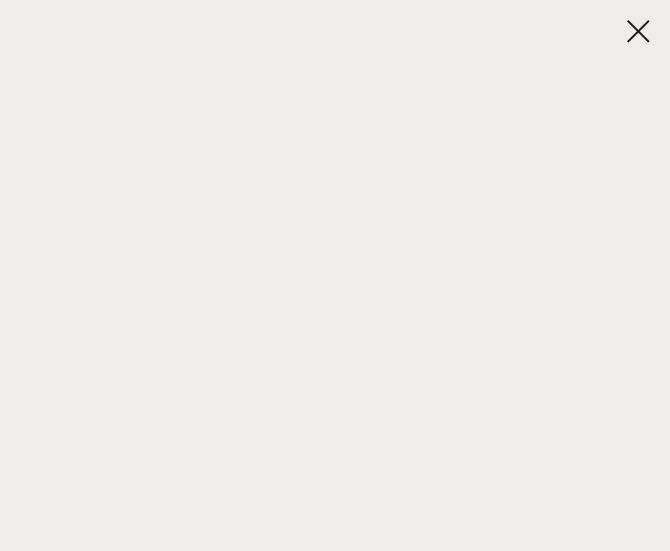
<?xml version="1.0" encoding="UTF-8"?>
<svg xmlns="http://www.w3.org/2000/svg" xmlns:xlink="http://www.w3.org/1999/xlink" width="670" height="551">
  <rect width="100%" height="100%" fill="#eeedea" />
  <image x="627" y="20" width="23" height="23" xlink:href="image1.png" />
</svg>
